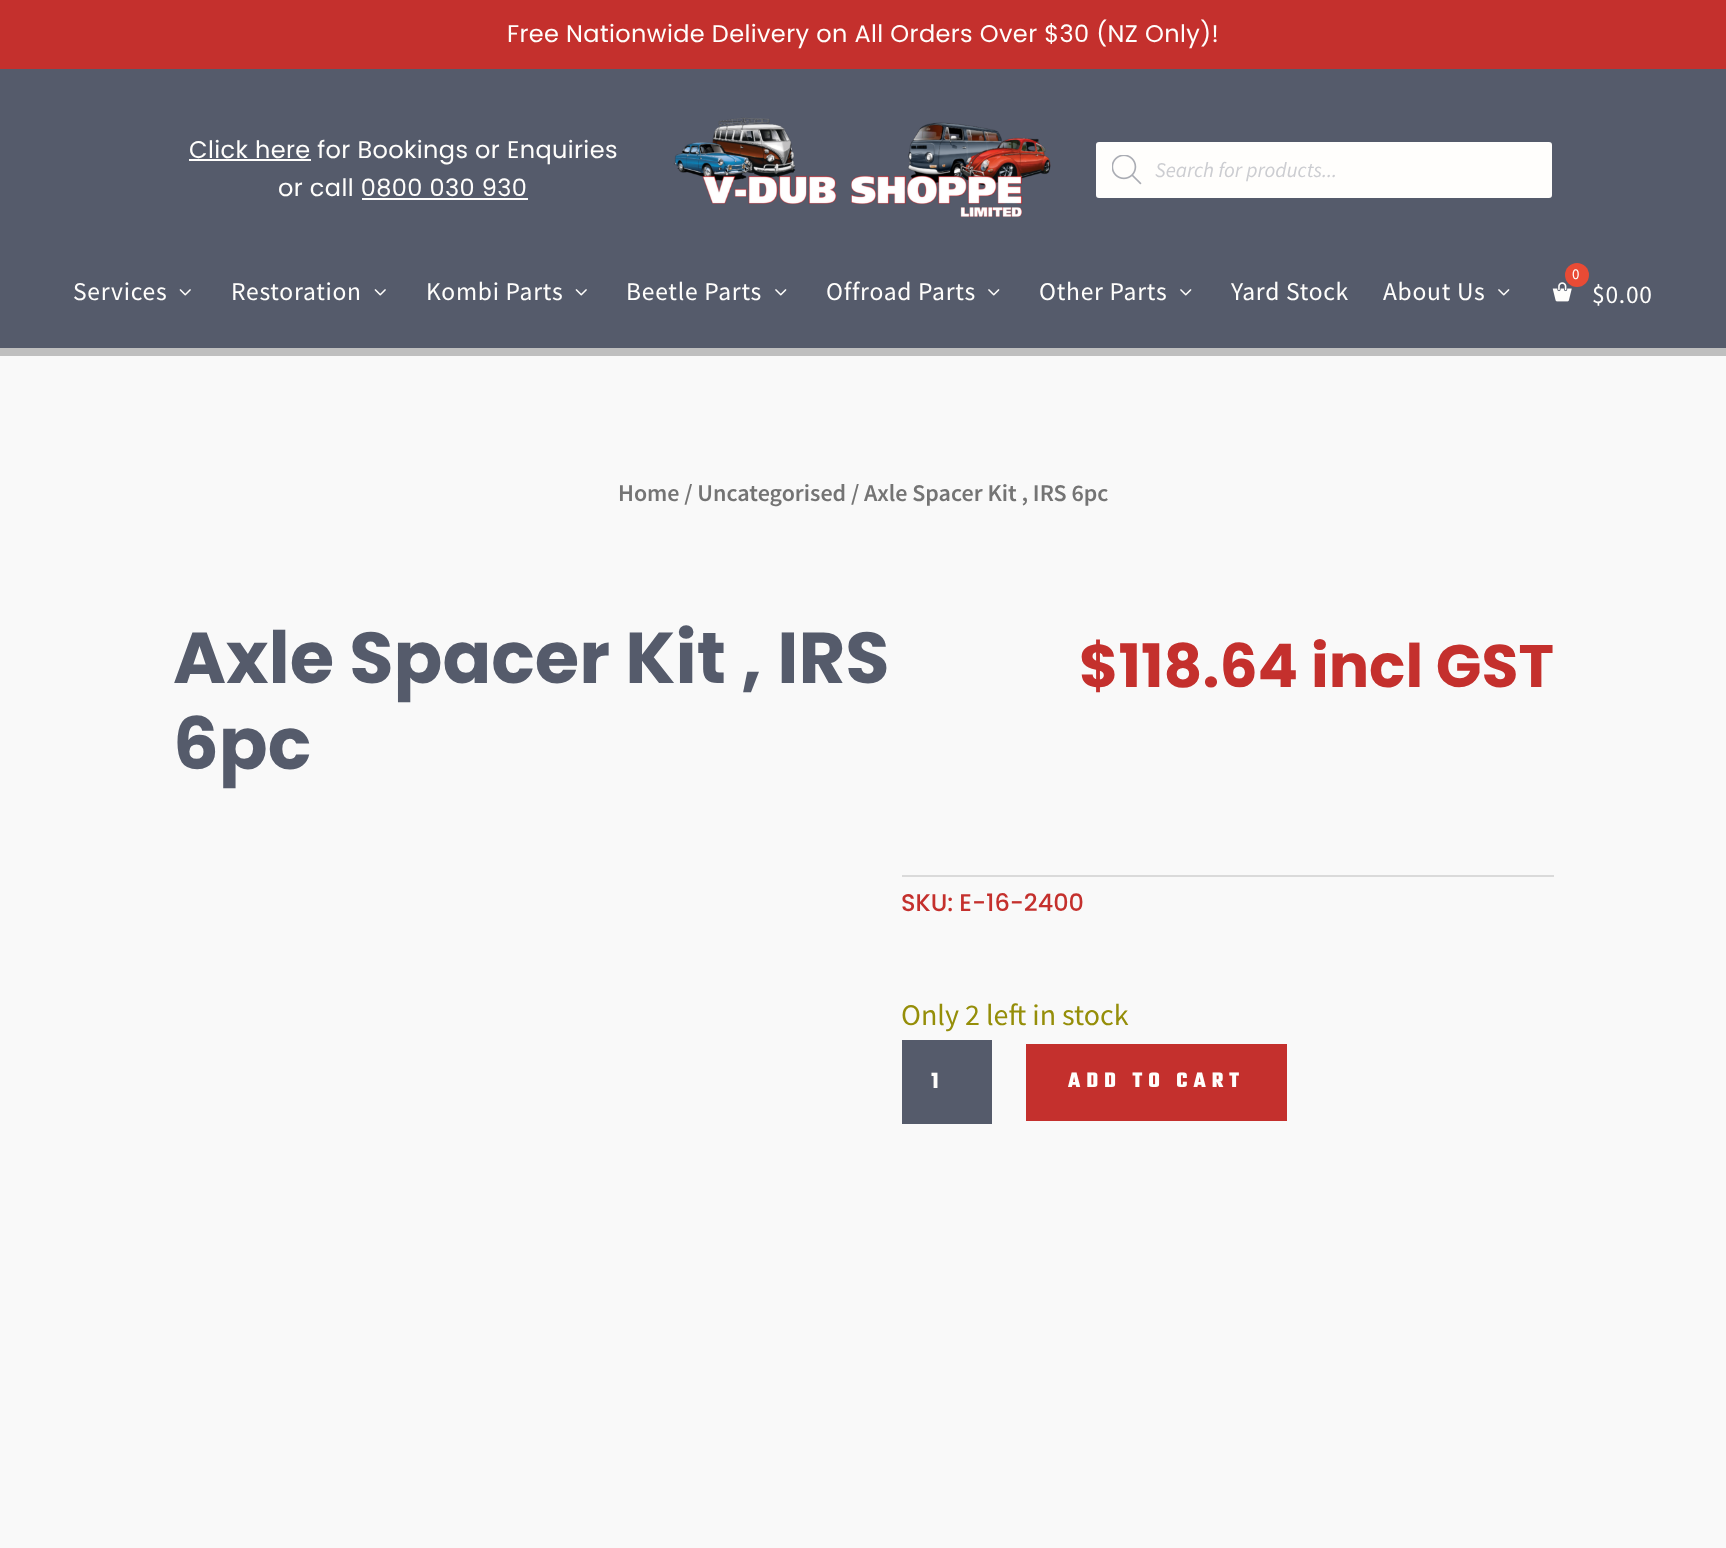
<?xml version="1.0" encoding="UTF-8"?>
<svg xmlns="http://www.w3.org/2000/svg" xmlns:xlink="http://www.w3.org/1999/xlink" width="1726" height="1548">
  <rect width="100%" height="100%" fill="#f9f9f9" />
  <rect width="1726" height="69" fill="#c4302d" />
  <rect y="69" width="1726" height="279" fill="#555b6b" />
  <rect x="189" y="159" width="122" height="2" fill="#fffefc" />
  <rect x="362" y="198" width="166" height="2" fill="#fffefc" />
  <image x="673" y="117" width="378" height="100" xlink:href="image1.png" />
  <rect x="1095" y="141" width="458" height="58" rx="4" fill="#fffefc" stroke="#555b6b" stroke-width="2" />
  <image x="1112" y="155" width="30" height="30" xlink:href="image2.png" />
  <rect y="348" width="1726" height="8" fill="#bfbfbf" />
  <image x="179" y="289" width="12" height="7" xlink:href="image3.png" />
  <image x="374" y="289" width="12" height="7" xlink:href="image3.png" />
  <image x="575" y="289" width="12" height="7" xlink:href="image3.png" />
  <image x="775" y="289" width="12" height="7" xlink:href="image4.png" />
  <image x="988" y="289" width="12" height="7" xlink:href="image4.png" />
  <image x="1180" y="289" width="12" height="7" xlink:href="image4.png" />
  <image x="1498" y="289" width="12" height="7" xlink:href="image4.png" />
  <image x="1552" y="282" width="20" height="20" xlink:href="image5.png" />
  <circle cx="1577" cy="275" r="12" fill="#e94b35" />
  <rect x="902" y="875" width="652" height="2" fill="#dadada" />
  <rect x="902" y="1040" width="90" height="84" fill="#555b6b" />
  <rect x="1026" y="1044" width="261" height="77" fill="#c4302d" />
  <text x="507" y="42" style="font-family: Poppins; font-size: 24px; letter-spacing: 0.38px; fill: #fffefc">Free Nationwide Delivery on All Orders Over $30 (NZ Only)!</text>
  <text x="189" y="158" style="font-family: Poppins; font-size: 24px; letter-spacing: 0.38px; fill: #fffefc">Click here for Bookings or Enquiries</text>
  <text x="278" y="196" style="font-family: Poppins; font-size: 24px; letter-spacing: 0.38px; fill: #fffefc">or call 0800 030 930</text>
  <text x="1155" y="177" style="font-family: Source Sans Pro; font-size: 21px; font-style: italic; fill: #cccdd1">Search for products...</text>
  <text x="73" y="300" style="font-family: Source Sans Pro; font-size: 25.5px; letter-spacing: 0.75px; fill: #fffefc">Services</text>
  <text x="231" y="300" style="font-family: Source Sans Pro; font-size: 25.5px; letter-spacing: 0.75px; fill: #fffefc">Restoration</text>
  <text x="426" y="300" style="font-family: Source Sans Pro; font-size: 25.5px; letter-spacing: 0.75px; fill: #fffefc">Kombi Parts</text>
  <text x="626" y="300" style="font-family: Source Sans Pro; font-size: 25.5px; letter-spacing: 0.75px; fill: #fffefc">Beetle Parts</text>
  <text x="826" y="300" style="font-family: Source Sans Pro; font-size: 25.5px; letter-spacing: 0.75px; fill: #fffefc">Offroad Parts</text>
  <text x="1039" y="300" style="font-family: Source Sans Pro; font-size: 25.5px; letter-spacing: 0.75px; fill: #fffefc">Other Parts</text>
  <text x="1231" y="300" style="font-family: Source Sans Pro; font-size: 25.5px; letter-spacing: 0.75px; fill: #fffefc">Yard Stock</text>
  <text x="1383" y="300" style="font-family: Source Sans Pro; font-size: 25.5px; letter-spacing: 0.75px; fill: #fffefc">About Us</text>
  <text x="1572" y="279" style="font-family: Source Sans Pro; font-size: 15px; letter-spacing: 0.75px; fill: #fffefc">0</text>
  <text x="1592" y="303" style="font-family: Source Sans Pro; font-size: 25.5px; letter-spacing: 0.75px; fill: #fffefc">$0.00</text>
  <text x="618" y="501" style="font-family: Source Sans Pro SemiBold; font-size: 24px; font-weight: 600; fill: #747474">Home / Uncategorised / Axle Spacer Kit , IRS 6pc</text>
  <text x="173" y="683" style="font-family: Poppins; font-size: 72px; font-weight: bold; fill: #555b6b">Axle Spacer Kit , IRS</text>
  <text x="173" y="769" style="font-family: Poppins; font-size: 72px; font-weight: bold; fill: #555b6b">6pc</text>
  <text x="1079" y="687" style="font-family: Poppins; font-size: 60px; font-weight: bold; fill: #c4302d">$118.64 incl GST</text>
  <text x="901" y="911" style="font-family: Poppins; font-size: 24px; font-weight: 500; fill: #c4302d">SKU: E-16-2400</text>
  <text x="901" y="1025" style="font-family: Source Sans Pro; font-size: 30px; fill: #958e09">Only 2 left in stock</text>
  <text x="931" y="1088" style="font-family: Poppins; font-size: 21px; font-weight: bold; fill: #fffefc">1</text>
  <text x="1068" y="1087" style="font-family: Teko; font-size: 22.5px; font-weight: bold; letter-spacing: 6px; fill: #fffefc">ADD TO CART</text>
</svg>
